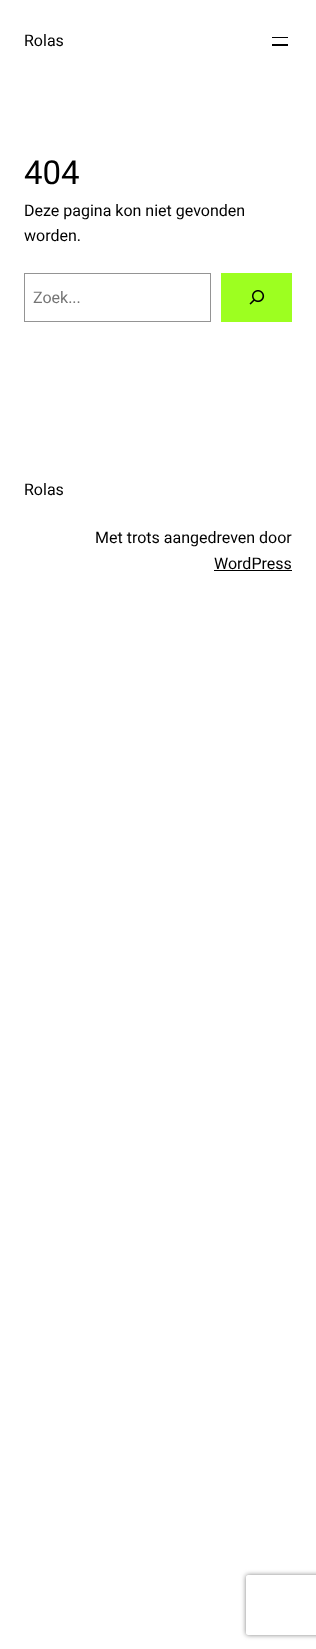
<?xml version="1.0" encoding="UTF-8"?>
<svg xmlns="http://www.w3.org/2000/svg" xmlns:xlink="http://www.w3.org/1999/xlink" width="316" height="1649">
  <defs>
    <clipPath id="clip1"><path d="M 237 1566 h 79 v 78 h -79 z m 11 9 h 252 c 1 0 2 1 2 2 v 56 c 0 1 -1 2 -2 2 h -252 c -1 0 -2 -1 -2 -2 v -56 c 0 -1 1 -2 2 -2 z" clip-rule="evenodd" /></clipPath>
  </defs>
  <rect width="100%" height="100%" fill="#ffffff" />
  <rect x="272" y="37" width="16" height="1" fill="#000000" />
  <rect x="272" y="44" width="16" height="2" fill="#000000" />
  <rect x="24.5" y="273.5" width="186" height="48" fill="none" stroke="#949494" />
  <rect x="221" y="273" width="71" height="49" fill="#9dff20" />
  <image x="249" y="290" width="16" height="15" xlink:href="image1.png" />
  <rect x="214" y="570" width="78" height="1" fill="#000000" />
  <g clip-path="url(#clip1)">
    <rect x="246" y="1575" width="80" height="60" rx="2" fill="#808080" filter="blur(2.5px)" />
  </g>
  <text x="24" y="46" style="font-family: Roboto; font-size: 16px; fill: #000000">Rolas</text>
  <text x="24" y="184" style="font-family: Roboto; font-size: 33px; fill: #000000">404</text>
  <text x="24" y="216" style="font-family: Roboto; font-size: 16px; fill: #000000">Deze pagina kon niet gevonden</text>
  <text x="24" y="241" style="font-family: Roboto; font-size: 16px; fill: #000000">worden.</text>
  <text x="33" y="303" style="font-family: Roboto; font-size: 16px; fill: #757575">Zoek...</text>
  <text x="24" y="495" style="font-family: Roboto; font-size: 16px; fill: #000000">Rolas</text>
  <text x="95" y="543" style="font-family: Roboto; font-size: 16px; fill: #000000">Met trots aangedreven door</text>
  <text x="214" y="569" style="font-family: Roboto; font-size: 16px; fill: #000000">WordPress</text>
</svg>
